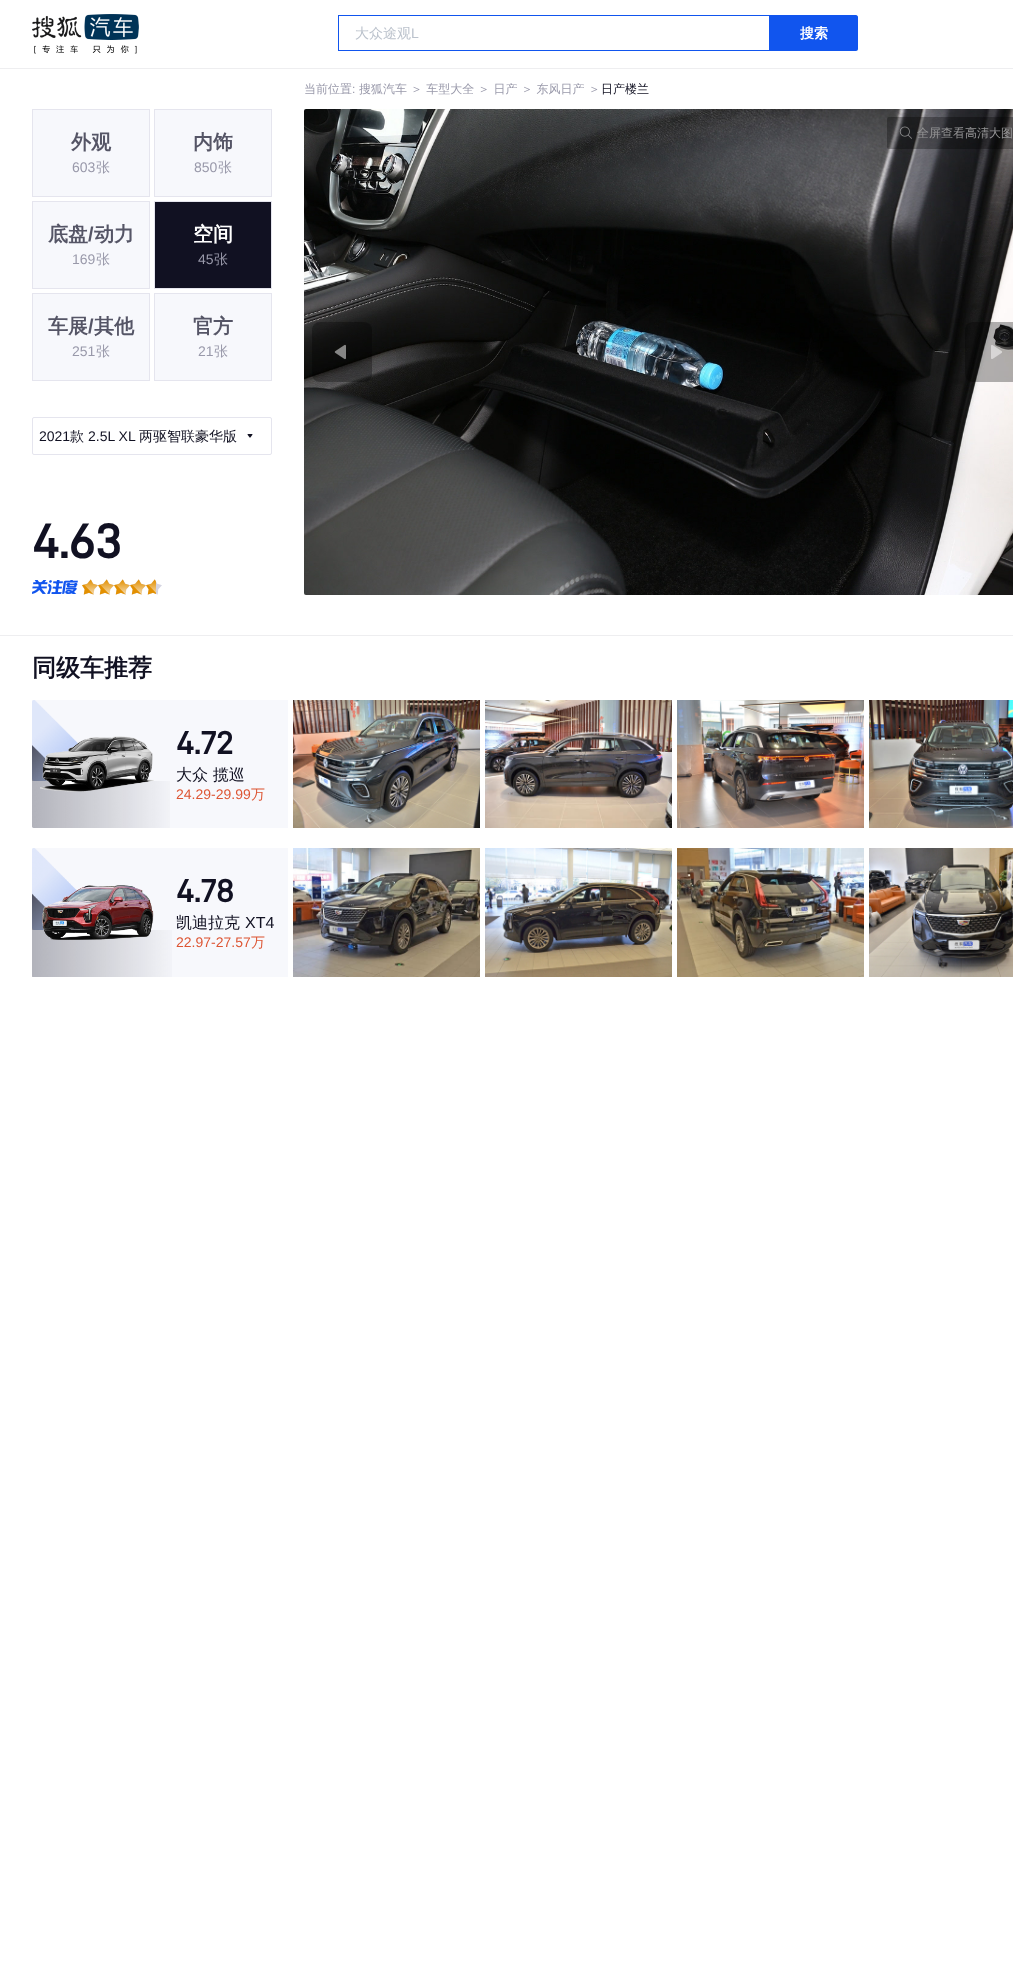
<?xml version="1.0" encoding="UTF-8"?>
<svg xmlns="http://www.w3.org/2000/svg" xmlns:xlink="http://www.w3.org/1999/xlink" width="1013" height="1983">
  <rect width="100%" height="100%" fill="#ffffff" />
  <rect y="68" width="1013" height="1" fill="#eeeef0" />
  <image x="32" y="14" width="107" height="40" xlink:href="image1.png" />
  <rect x="338.5" y="15.5" width="431" height="35" fill="none" stroke="#1155ee" />
  <path d="M 770 15 h 86 c 1 0 2 1 2 2 v 32 c 0 1 -1 2 -2 2 h -86 z" fill="#1155ee" />
  <rect x="32.5" y="109.5" width="117" height="87" fill="#f7f8fc" stroke="#e5e5ee" />
  <rect x="154.5" y="109.5" width="117" height="87" fill="#f7f8fc" stroke="#e5e5ee" />
  <rect x="32.5" y="201.5" width="117" height="87" fill="#f7f8fc" stroke="#e5e5ee" />
  <rect x="154.5" y="201.5" width="117" height="87" fill="#111122" stroke="#e5e5ee" />
  <rect x="32.5" y="293.5" width="117" height="87" fill="#f7f8fc" stroke="#e5e5ee" />
  <rect x="154.5" y="293.5" width="117" height="87" fill="#f7f8fc" stroke="#e5e5ee" />
  <rect x="32.5" y="417.5" width="239" height="37" rx="1.5" fill="none" stroke="#e5e5ee" />
  <image x="247" y="434" width="6" height="4" xlink:href="image2.png" />
  <image x="32" y="580" width="46" height="14" xlink:href="image3.png" />
  <image x="82" y="579" width="16" height="16" xlink:href="image4.png" />
  <image x="82" y="579" width="16" height="16" xlink:href="image5.png" />
  <image x="98" y="579" width="16" height="16" xlink:href="image4.png" />
  <image x="98" y="579" width="16" height="16" xlink:href="image5.png" />
  <image x="114" y="579" width="16" height="16" xlink:href="image4.png" />
  <image x="114" y="579" width="16" height="16" xlink:href="image5.png" />
  <image x="130" y="579" width="16" height="16" xlink:href="image4.png" />
  <image x="130" y="579" width="16" height="16" xlink:href="image5.png" />
  <image x="146" y="579" width="16" height="16" xlink:href="image4.png" />
  <image x="146" y="579" width="10" height="16" xlink:href="image6.png" />
  <image x="304" y="109" width="709" height="486" xlink:href="image7.png" />
  <rect x="887" y="117" width="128" height="32" rx="2" fill="#000000" fill-opacity="0.3" />
  <image x="899" y="126" width="13" height="13" xlink:href="image8.png" />
  <rect x="312" y="322" width="60" height="60" rx="8" fill="#000000" fill-opacity="0.3" />
  <image x="334" y="344" width="12" height="16" xlink:href="image9.png" />
  <rect x="965" y="322" width="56" height="60" rx="8" fill="#000000" fill-opacity="0.3" />
  <image x="991" y="345" width="11" height="14" xlink:href="image10.png" />
  <rect y="635" width="1013" height="1" fill="#eeeef0" />
  <rect x="32" y="700" width="256" height="128" fill="#f7f8fc" />
  <image x="32" y="700" width="138" height="128" xlink:href="image11.png" />
  <image x="40" y="736" width="114" height="56" xlink:href="image12.png" />
  <image x="293" y="700" width="187" height="128" xlink:href="image13.png" />
  <image x="485" y="700" width="187" height="128" xlink:href="image14.png" />
  <image x="677" y="700" width="187" height="128" xlink:href="image15.png" />
  <image x="869" y="700" width="144" height="128" xlink:href="image16.png" />
  <rect x="32" y="848" width="256" height="129" fill="#f7f8fc" />
  <image x="32" y="848" width="140" height="129" xlink:href="image17.png" />
  <image x="42" y="885" width="112" height="55" xlink:href="image18.png" />
  <image x="293" y="848" width="187" height="129" xlink:href="image19.png" />
  <image x="485" y="848" width="187" height="129" xlink:href="image20.png" />
  <image x="677" y="848" width="187" height="129" xlink:href="image21.png" />
  <image x="869" y="848" width="144" height="129" xlink:href="image22.png" />
  <text x="355" y="38" style="font-family: WenQuanYi Zen Hei; font-size: 14px; font-weight: 500; fill: #bbc2cc">大众途观</text>
  <text x="411" y="38" style="font-family: Liberation Sans; font-size: 14px; fill: #bbc2cc">L</text>
  <text x="800" y="38" style="font-family: WenQuanYi Zen Hei; font-size: 14px; font-weight: bold; fill: #ffffff">搜索</text>
  <text x="304" y="93" style="font-family: WenQuanYi Zen Hei; font-size: 12px; font-weight: 500; fill: #9999aa">当前位置</text>
  <text x="352" y="93" style="font-family: Liberation Sans; font-size: 12px; fill: #9999aa">:</text>
  <text x="359" y="93" style="font-family: WenQuanYi Zen Hei; font-size: 12px; font-weight: 500; fill: #9999aa">搜狐汽车 ＞ 车型大全 ＞ 日产 ＞ 东风日产 ＞</text>
  <text x="601" y="93" style="font-family: WenQuanYi Zen Hei; font-size: 12px; font-weight: 500; fill: #111122">日产楼兰</text>
  <text x="71" y="149" style="font-family: WenQuanYi Zen Hei; font-size: 20px; font-weight: bold; fill: #555566">外观</text>
  <text x="72" y="172" style="font-family: Liberation Sans; font-size: 14px; fill: #9999aa">603</text>
  <text x="96" y="172" style="font-family: WenQuanYi Zen Hei; font-size: 14px; font-weight: 500; fill: #9999aa">张</text>
  <text x="193" y="149" style="font-family: WenQuanYi Zen Hei; font-size: 20px; font-weight: bold; fill: #555566">内饰</text>
  <text x="194" y="172" style="font-family: Liberation Sans; font-size: 14px; fill: #9999aa">850</text>
  <text x="218" y="172" style="font-family: WenQuanYi Zen Hei; font-size: 14px; font-weight: 500; fill: #9999aa">张</text>
  <text x="48" y="241" style="font-family: WenQuanYi Zen Hei; font-size: 20px; font-weight: bold; fill: #555566">底盘</text>
  <text x="88" y="241" style="font-family: Liberation Sans; font-size: 20px; font-weight: bold; fill: #555566">/</text>
  <text x="94" y="241" style="font-family: WenQuanYi Zen Hei; font-size: 20px; font-weight: bold; fill: #555566">动力</text>
  <text x="72" y="264" style="font-family: Liberation Sans; font-size: 14px; fill: #9999aa">169</text>
  <text x="96" y="264" style="font-family: WenQuanYi Zen Hei; font-size: 14px; font-weight: 500; fill: #9999aa">张</text>
  <text x="193" y="241" style="font-family: WenQuanYi Zen Hei; font-size: 20px; font-weight: bold; fill: #ffffff">空间</text>
  <text x="198" y="264" style="font-family: Liberation Sans; font-size: 14px; fill: #9999aa">45</text>
  <text x="214" y="264" style="font-family: WenQuanYi Zen Hei; font-size: 14px; font-weight: 500; fill: #9999aa">张</text>
  <text x="48" y="333" style="font-family: WenQuanYi Zen Hei; font-size: 20px; font-weight: bold; fill: #555566">车展</text>
  <text x="88" y="333" style="font-family: Liberation Sans; font-size: 20px; font-weight: bold; fill: #555566">/</text>
  <text x="94" y="333" style="font-family: WenQuanYi Zen Hei; font-size: 20px; font-weight: bold; fill: #555566">其他</text>
  <text x="72" y="356" style="font-family: Liberation Sans; font-size: 14px; fill: #9999aa">251</text>
  <text x="96" y="356" style="font-family: WenQuanYi Zen Hei; font-size: 14px; font-weight: 500; fill: #9999aa">张</text>
  <text x="193" y="333" style="font-family: WenQuanYi Zen Hei; font-size: 20px; font-weight: bold; fill: #555566">官方</text>
  <text x="198" y="356" style="font-family: Liberation Sans; font-size: 14px; fill: #9999aa">21</text>
  <text x="214" y="356" style="font-family: WenQuanYi Zen Hei; font-size: 14px; font-weight: 500; fill: #9999aa">张</text>
  <text x="39" y="441" style="font-family: Liberation Sans; font-size: 14px; fill: #111122">2021</text>
  <text x="70" y="441" style="font-family: WenQuanYi Zen Hei; font-size: 14px; font-weight: 500; fill: #111122">款</text>
  <text x="88" y="441" style="font-family: Liberation Sans; font-size: 14px; fill: #111122">2.5L XL</text>
  <text x="139" y="441" style="font-family: WenQuanYi Zen Hei; font-size: 14px; font-weight: 500; fill: #111122">两驱智联豪华版</text>
  <text x="32" y="558" style="font-family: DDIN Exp; font-size: 48px; font-weight: bold; fill: #111122">4.63</text>
  <text x="917" y="137" style="font-family: WenQuanYi Zen Hei; font-size: 12px; font-weight: 500; fill: #959596">全屏查看高清大图</text>
  <text x="32" y="676" style="font-family: WenQuanYi Zen Hei; font-size: 24px; font-weight: bold; fill: #111122">同级车推荐</text>
  <text x="176" y="754" style="font-family: DDIN Exp; font-size: 32px; font-weight: bold; fill: #111122">4.72</text>
  <text x="176" y="780" style="font-family: WenQuanYi Zen Hei; font-size: 16px; font-weight: 500; fill: #111122">大众 揽巡</text>
  <text x="176" y="799" style="font-family: Liberation Sans; font-size: 14px; fill: #dd5533">24.29-29.99</text>
  <text x="251" y="799" style="font-family: WenQuanYi Zen Hei; font-size: 14px; font-weight: 500; fill: #dd5533">万</text>
  <text x="176" y="902" style="font-family: DDIN Exp; font-size: 32px; font-weight: bold; fill: #111122">4.78</text>
  <text x="176" y="928" style="font-family: WenQuanYi Zen Hei; font-size: 16px; font-weight: 500; fill: #111122">凯迪拉克</text>
  <text x="245" y="928" style="font-family: Liberation Sans; font-size: 16px; fill: #111122">XT4</text>
  <text x="176" y="947" style="font-family: Liberation Sans; font-size: 14px; fill: #dd5533">22.97-27.57</text>
  <text x="251" y="947" style="font-family: WenQuanYi Zen Hei; font-size: 14px; font-weight: 500; fill: #dd5533">万</text>
</svg>
